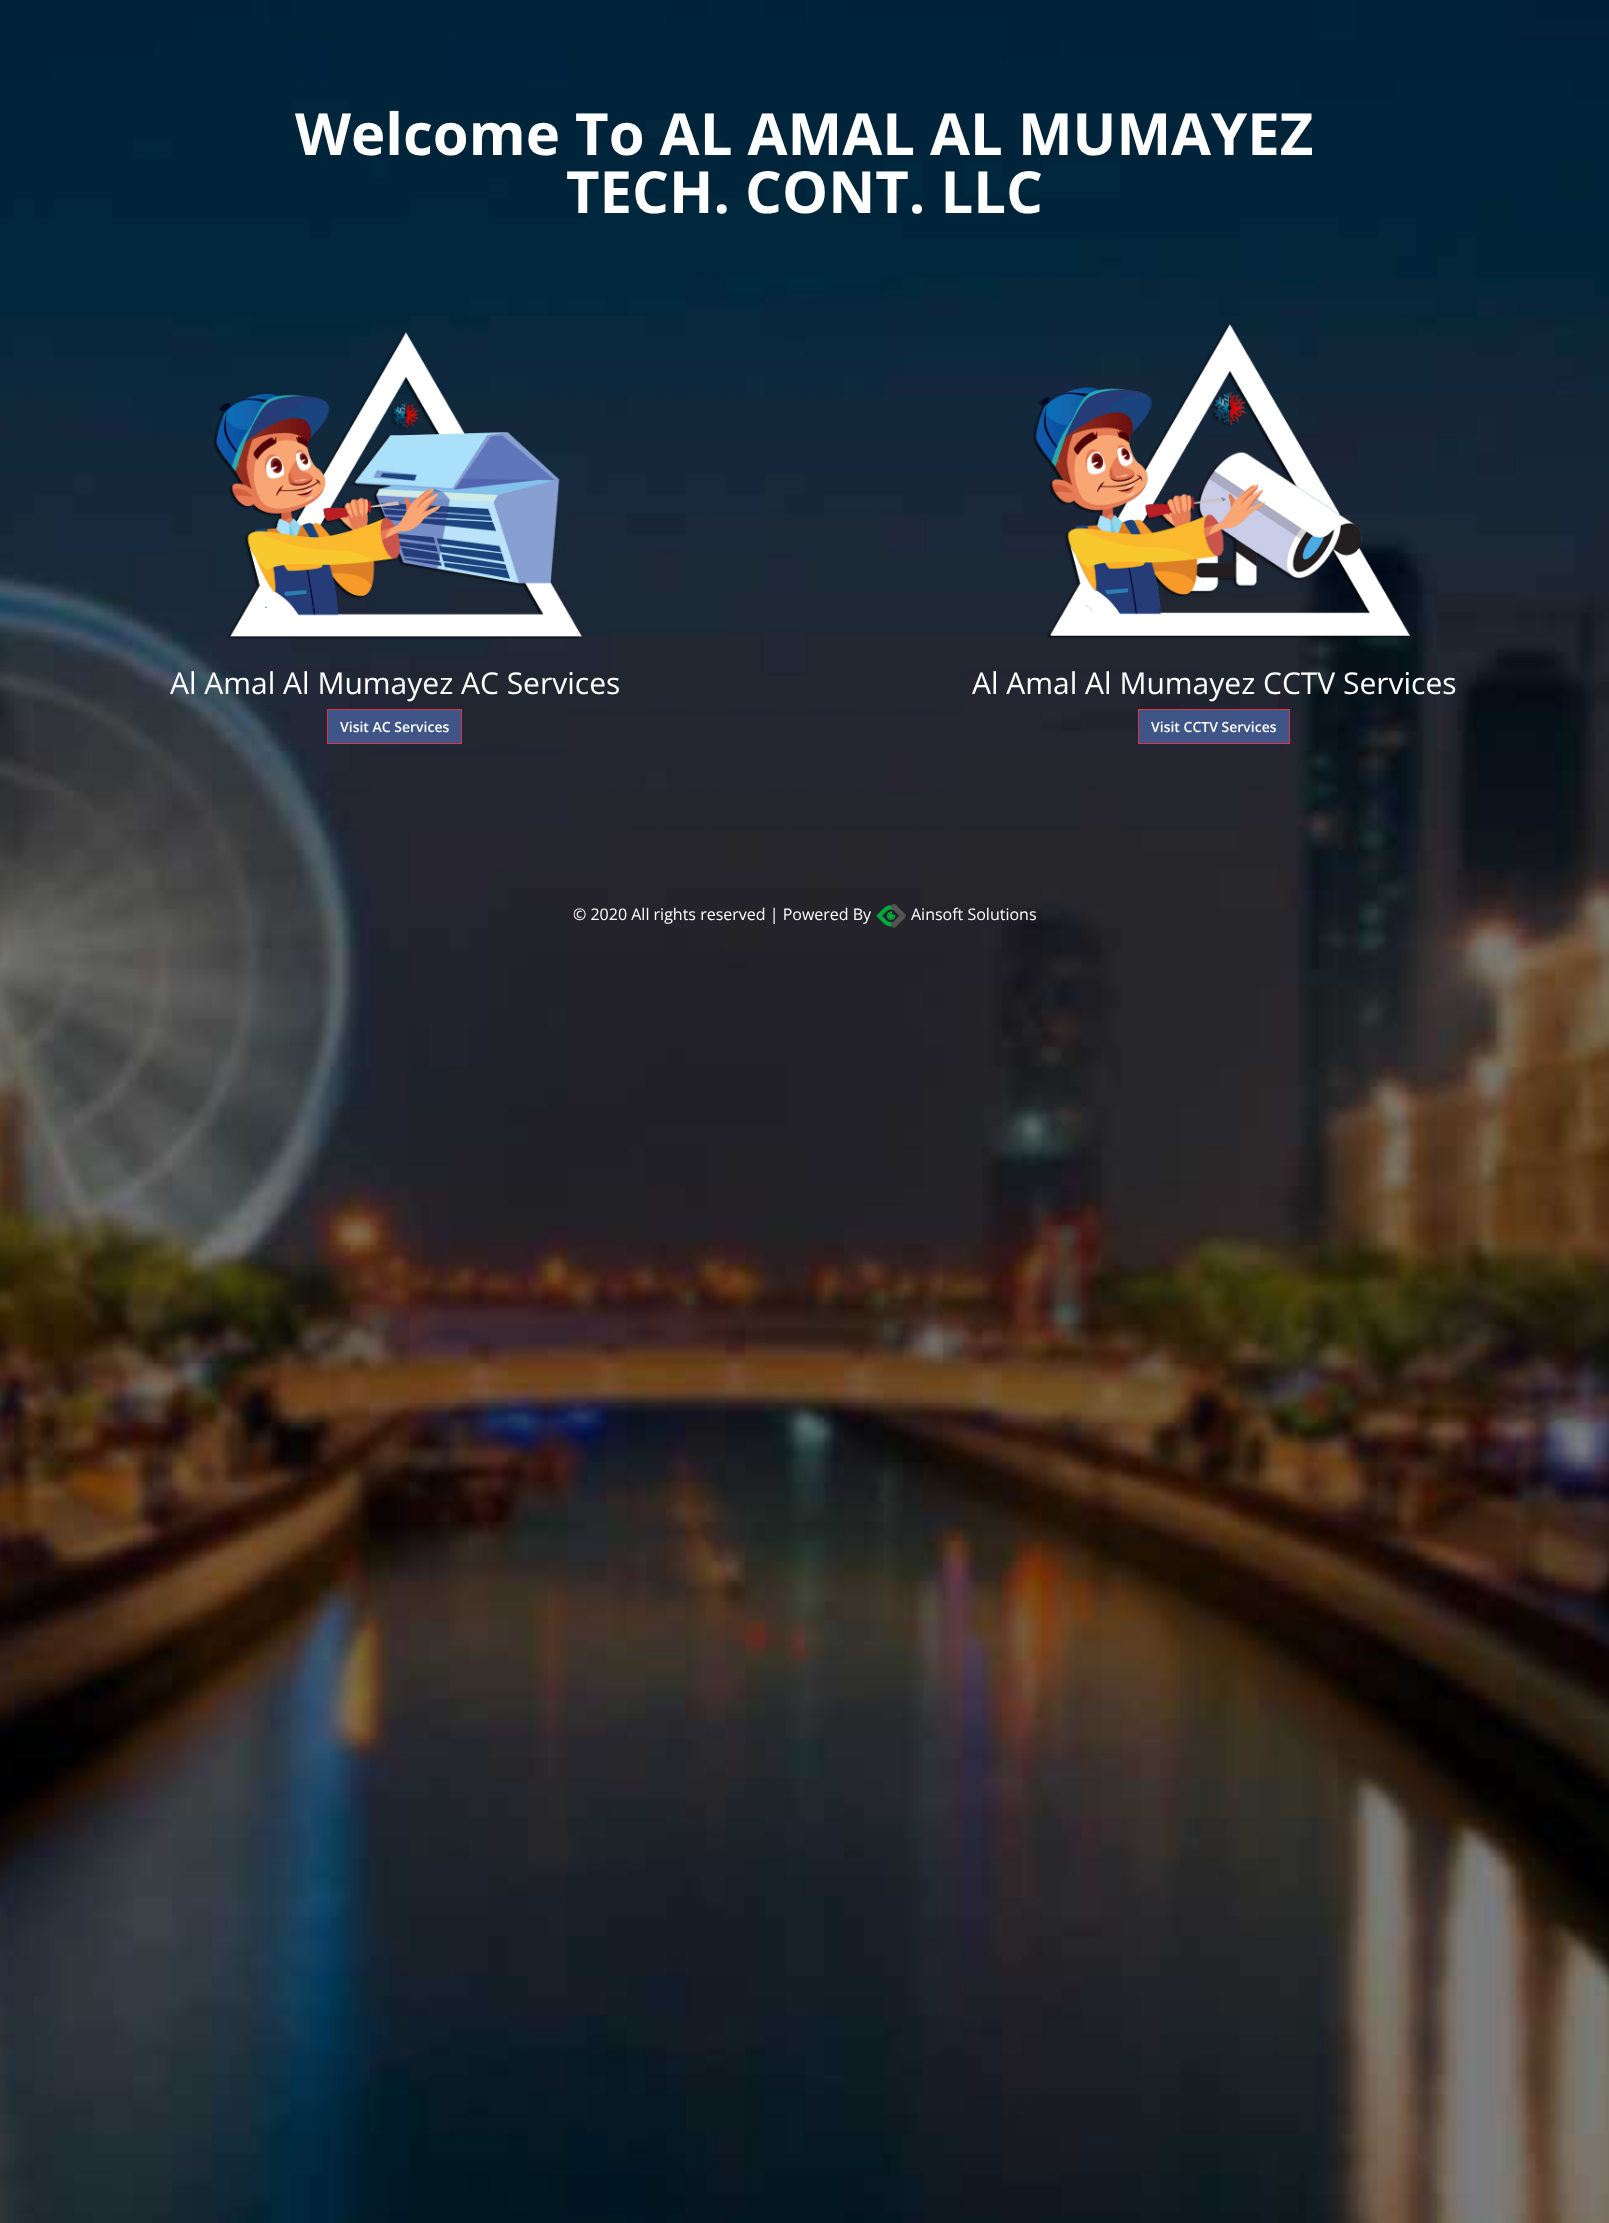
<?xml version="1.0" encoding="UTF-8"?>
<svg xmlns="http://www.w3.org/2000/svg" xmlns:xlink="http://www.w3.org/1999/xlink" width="1609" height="2223">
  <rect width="100%" height="100%" fill="#ffffff" />
  <image x="0" y="0" width="1609" height="2223" xlink:href="image1.png" />
  <image x="213" y="332" width="369" height="307" xlink:href="image2.png" />
  <rect x="327.5" y="709.5" width="134" height="34" fill="#3f5487" stroke="#dc3545" />
  <image x="1033" y="324" width="378" height="314" xlink:href="image3.png" />
  <rect x="1138.5" y="709.5" width="151" height="34" fill="#3f5487" stroke="#dc3545" />
  <image x="876" y="904" width="30" height="24" xlink:href="image4.png" />
  <text x="295" y="155" style="font-family: Open Sans; font-size: 58px; font-weight: bold; fill: #ffffff">Welcome To AL AMAL AL MUMAYEZ</text>
  <text x="566" y="213" style="font-family: Open Sans; font-size: 58px; font-weight: bold; fill: #ffffff">TECH. CONT. LLC</text>
  <text x="170" y="694" style="font-family: Open Sans; font-size: 30px; fill: #ffffff">Al Amal Al Mumayez AC Services</text>
  <text x="340" y="732" style="font-family: Open Sans; font-size: 14px; font-weight: 600; fill: #ffffff">Visit AC Services</text>
  <text x="972" y="694" style="font-family: Open Sans; font-size: 30px; fill: #ffffff">Al Amal Al Mumayez CCTV Services</text>
  <text x="1151" y="732" style="font-family: Open Sans; font-size: 14px; font-weight: 600; fill: #ffffff">Visit CCTV Services</text>
  <text x="573" y="920" style="font-family: Open Sans; font-size: 16px; fill: #ffffff">© 2020 All rights reserved | Powered By</text>
  <text x="911" y="920" style="font-family: Open Sans; font-size: 16px; fill: #ffffff">Ainsoft Solutions</text>
</svg>
